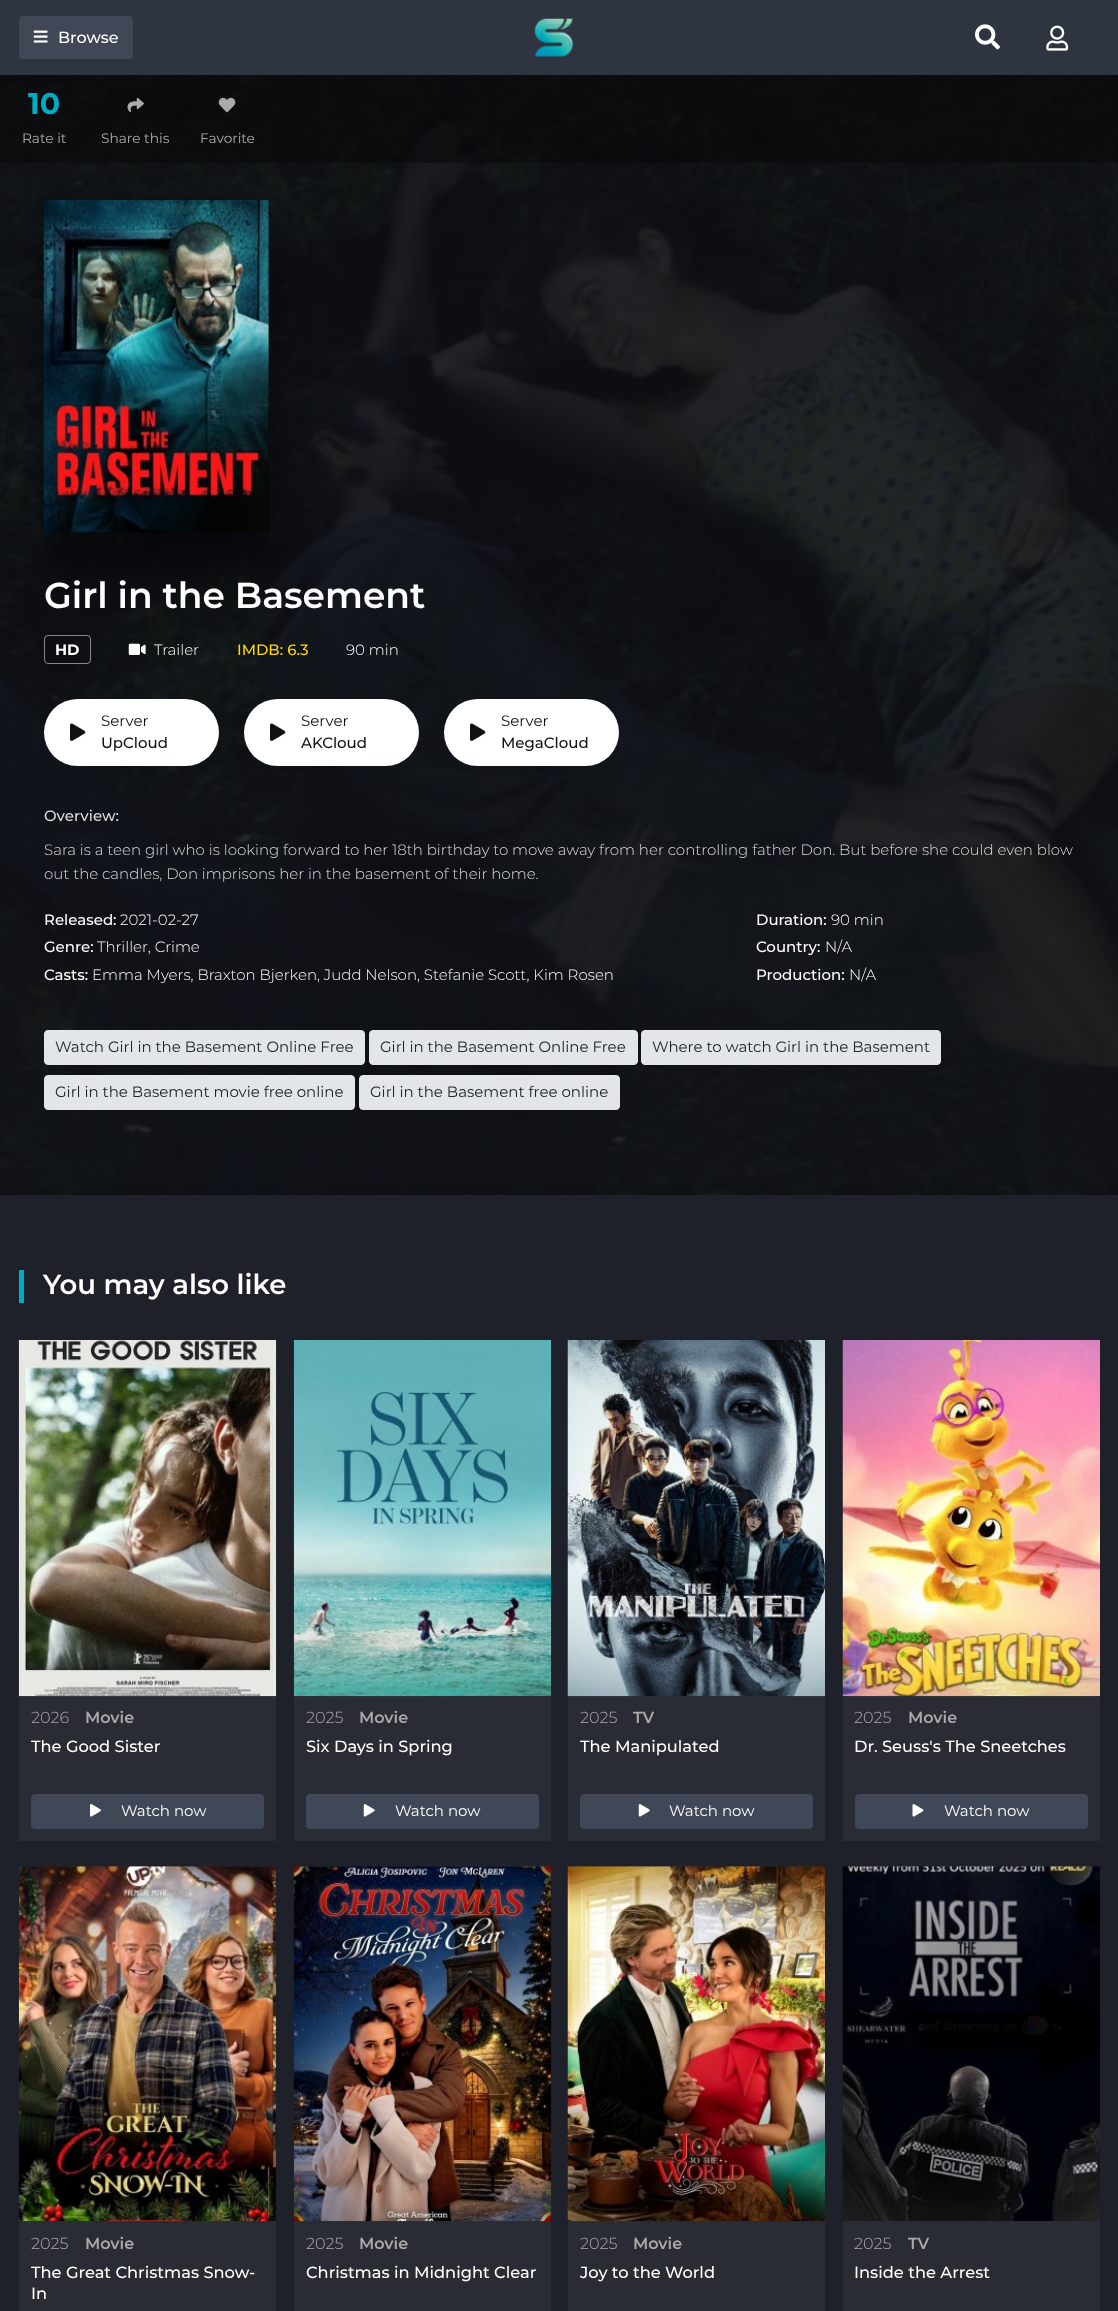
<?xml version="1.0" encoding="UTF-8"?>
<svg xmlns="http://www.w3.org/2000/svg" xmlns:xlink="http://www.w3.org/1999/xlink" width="1118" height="2311">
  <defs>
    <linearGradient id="g1" gradientUnits="userSpaceOnUse" x1="559" y1="1195" x2="559" y2="325"><stop offset="0" stop-color="#13151a" stop-opacity="0.3" /><stop offset="1" stop-color="#13151a" stop-opacity="0" /></linearGradient>
  </defs>
  <rect width="100%" height="100%" fill="#1e2129" />
  <rect width="1118" height="75" fill="#2f3441" />
  <rect x="19" y="16" width="114" height="43" rx="4" fill="#404757" />
  <image x="33" y="30" width="15" height="13" xlink:href="image1.png" />
  <image x="534" y="18" width="39" height="39" xlink:href="image2.png" />
  <image x="975" y="24" width="25" height="26" xlink:href="image3.png" />
  <image x="1046" y="25" width="23" height="26" xlink:href="image4.png" />
  <rect y="75" width="1118" height="1120" fill="#13151a" />
  <image x="0" y="75" width="1118" height="1120" xlink:href="image7.png" />
  <rect y="75" width="1118" height="88" fill="#050505" fill-opacity="0.5" />
  <image x="127" y="97" width="17" height="16" xlink:href="image5.png" />
  <image x="218" y="97" width="18" height="16" xlink:href="image6.png" />
  <rect y="772" width="1118" height="412" fill="url(#g1)" />
  <rect x="44" y="238" width="225" height="332" fill="#000000" fill-opacity="0.5" filter="blur(19px)" />
  <image x="43" y="200" width="226" height="333" xlink:href="image8.png" />
  <rect x="44.5" y="635.5" width="46" height="28" rx="3.5" fill="none" stroke="#ffffff" stroke-opacity="0.5" />
  <image x="128" y="643" width="18" height="12" xlink:href="image9.png" />
  <rect x="44" y="699" width="175" height="67" rx="33.5" fill="#ffffff" />
  <image x="70" y="723" width="16" height="18" xlink:href="image10.png" />
  <rect x="244" y="699" width="175" height="67" rx="33.5" fill="#ffffff" />
  <image x="270" y="723" width="16" height="18" xlink:href="image10.png" />
  <rect x="444" y="699" width="175" height="67" rx="33.5" fill="#ffffff" />
  <image x="470" y="723" width="16" height="18" xlink:href="image10.png" />
  <rect x="44.5" y="1030.5" width="320" height="34" rx="3.5" fill="#e2e6ea" stroke="#e2e6ea" />
  <rect x="369.5" y="1030.5" width="268" height="34" rx="3.5" fill="#e2e6ea" stroke="#e2e6ea" />
  <rect x="641.5" y="1030.5" width="299" height="34" rx="3.5" fill="#e2e6ea" stroke="#e2e6ea" />
  <rect x="44.5" y="1075.5" width="310" height="34" rx="3.5" fill="#e2e6ea" stroke="#e2e6ea" />
  <rect x="359.5" y="1075.5" width="260" height="34" rx="3.5" fill="#e2e6ea" stroke="#e2e6ea" />
  <rect x="19" y="1270" width="5" height="33" fill="#00acc1" />
  <rect x="19" y="1696" width="257" height="145" fill="#292c34" />
  <image x="18" y="1340" width="259" height="357" xlink:href="image11.png" />
  <rect x="31.5" y="1794.5" width="232" height="34" rx="3.5" fill="#404757" stroke="#404757" />
  <image x="90" y="1804" width="11" height="13" xlink:href="image12.png" />
  <rect x="294" y="1696" width="257" height="145" fill="#292c34" />
  <image x="293" y="1340" width="259" height="357" xlink:href="image13.png" />
  <rect x="306.5" y="1794.5" width="232" height="34" rx="3.5" fill="#404757" stroke="#404757" />
  <image x="363" y="1804" width="12" height="13" xlink:href="image14.png" />
  <rect x="568" y="1696" width="257" height="145" fill="#292c34" />
  <image x="567" y="1340" width="258" height="357" xlink:href="image15.png" />
  <rect x="580.5" y="1794.5" width="232" height="34" rx="3.5" fill="#404757" stroke="#404757" />
  <image x="638" y="1804" width="12" height="13" xlink:href="image14.png" />
  <rect x="843" y="1696" width="257" height="145" fill="#292c34" />
  <image x="842" y="1340" width="258" height="357" xlink:href="image16.png" />
  <rect x="855.5" y="1794.5" width="232" height="34" rx="3.5" fill="#404757" stroke="#404757" />
  <image x="912" y="1804" width="12" height="13" xlink:href="image17.png" />
  <rect x="19" y="1866" width="257" height="445" fill="#292c34" />
  <image x="18" y="1866" width="259" height="356" xlink:href="image18.png" />
  <rect x="294" y="1866" width="257" height="445" fill="#292c34" />
  <image x="293" y="1866" width="259" height="356" xlink:href="image19.png" />
  <rect x="568" y="1866" width="257" height="445" fill="#292c34" />
  <image x="567" y="1866" width="258" height="356" xlink:href="image20.png" />
  <rect x="843" y="1866" width="257" height="445" fill="#292c34" />
  <image x="842" y="1866" width="258" height="355" xlink:href="image21.png" />
  <text x="58" y="43" style="font-family: Montserrat; font-size: 16px; font-weight: 500; fill: #ffffff">Browse</text>
  <text x="28" y="114" style="font-family: Montserrat; font-size: 30px; font-weight: bold; fill: #00acc1">10</text>
  <text x="22" y="143" style="font-family: Montserrat; font-size: 13.75px; fill: #aaaaaa">Rate it</text>
  <text x="101" y="143" style="font-family: Montserrat; font-size: 13.75px; fill: #aaaaaa">Share this</text>
  <text x="200" y="143" style="font-family: Montserrat; font-size: 13.75px; fill: #aaaaaa">Favorite</text>
  <text x="44" y="608" style="font-family: Montserrat; font-size: 36px; font-weight: 600; fill: #ffffff">Girl in the Basement</text>
  <text x="55" y="655" style="font-family: Montserrat; font-size: 15px; font-weight: bold; fill: #ffffff">HD</text>
  <text x="154" y="655" style="font-family: Montserrat; font-size: 15px; font-weight: 300; fill: #ffffff">Trailer</text>
  <text x="237" y="655" style="font-family: Montserrat; font-size: 15px; font-weight: 500; fill: #ffd800">IMDB: 6.3</text>
  <text x="346" y="655" style="font-family: Montserrat; font-size: 15px; font-weight: 300; fill: #ffffff">90 min</text>
  <text x="101" y="726" style="font-family: Montserrat; font-size: 15px; fill: #111111">Server</text>
  <text x="101" y="748" style="font-family: Montserrat; font-size: 15px; font-weight: 500; fill: #111111">UpCloud</text>
  <text x="301" y="726" style="font-family: Montserrat; font-size: 15px; fill: #111111">Server</text>
  <text x="301" y="748" style="font-family: Montserrat; font-size: 15px; font-weight: 500; fill: #111111">AKCloud</text>
  <text x="501" y="726" style="font-family: Montserrat; font-size: 15px; fill: #111111">Server</text>
  <text x="501" y="748" style="font-family: Montserrat; font-size: 15px; font-weight: 500; fill: #111111">MegaCloud</text>
  <text x="44" y="821" style="font-family: Montserrat; font-size: 15px; font-weight: 500; fill: #dddddd">Overview:</text>
  <text x="44" y="855" style="font-family: Montserrat; font-size: 15px; font-weight: 300; fill: #dddddd">Sara is a teen girl who is looking forward to her 18th birthday to move away from her controlling father Don. But before she could even blow</text>
  <text x="44" y="879" style="font-family: Montserrat; font-size: 15px; font-weight: 300; fill: #dddddd">out the candles, Don imprisons her in the basement of their home.</text>
  <text x="44" y="925" style="font-family: Montserrat; font-size: 15px; font-weight: 500; fill: #ffffff">Released:</text>
  <text x="120" y="925" style="font-family: Montserrat; font-size: 15px; font-weight: 300; fill: #ffffff">2021-02-27</text>
  <text x="44" y="952" style="font-family: Montserrat; font-size: 15px; font-weight: 500; fill: #ffffff">Genre:</text>
  <text x="97" y="952" style="font-family: Montserrat; font-size: 15px; font-weight: 300; fill: #ffffff">Thriller, Crime</text>
  <text x="44" y="980" style="font-family: Montserrat; font-size: 15px; font-weight: 500; fill: #ffffff">Casts:</text>
  <text x="92" y="980" style="font-family: Montserrat; font-size: 15px; font-weight: 300; fill: #ffffff">Emma Myers, Braxton Bjerken, Judd Nelson, Stefanie Scott, Kim Rosen</text>
  <text x="756" y="925" style="font-family: Montserrat; font-size: 15px; font-weight: 500; fill: #ffffff">Duration:</text>
  <text x="831" y="925" style="font-family: Montserrat; font-size: 15px; font-weight: 300; fill: #ffffff">90 min</text>
  <text x="756" y="952" style="font-family: Montserrat; font-size: 15px; font-weight: 500; fill: #ffffff">Country:</text>
  <text x="825" y="952" style="font-family: Montserrat; font-size: 15px; font-weight: 300; fill: #ffffff">N/A</text>
  <text x="756" y="980" style="font-family: Montserrat; font-size: 15px; font-weight: 500; fill: #ffffff">Production:</text>
  <text x="849" y="980" style="font-family: Montserrat; font-size: 15px; font-weight: 300; fill: #ffffff">N/A</text>
  <text x="55" y="1052" style="font-family: Montserrat; font-size: 15px; fill: #212529">Watch Girl in the Basement Online Free</text>
  <text x="380" y="1052" style="font-family: Montserrat; font-size: 15px; fill: #212529">Girl in the Basement Online Free</text>
  <text x="652" y="1052" style="font-family: Montserrat; font-size: 15px; fill: #212529">Where to watch Girl in the Basement</text>
  <text x="55" y="1097" style="font-family: Montserrat; font-size: 15px; fill: #212529">Girl in the Basement movie free online</text>
  <text x="370" y="1097" style="font-family: Montserrat; font-size: 15px; fill: #212529">Girl in the Basement free online</text>
  <text x="43" y="1294" style="font-family: Montserrat; font-size: 27.5px; font-weight: 600; fill: #ffffff">You may also like</text>
  <text x="31" y="1723" style="font-family: Montserrat; font-size: 16px; font-weight: 300; fill: #aaaaaa">2026</text>
  <text x="85" y="1723" style="font-family: Montserrat; font-size: 16px; font-weight: 600; fill: #aaaaaa">Movie</text>
  <text x="31" y="1752" style="font-family: Montserrat; font-size: 16.25px; font-weight: 500; fill: #ffffff">The Good Sister</text>
  <text x="121" y="1816" style="font-family: Montserrat; font-size: 15px; fill: #ffffff">Watch now</text>
  <text x="306" y="1723" style="font-family: Montserrat; font-size: 16px; font-weight: 300; fill: #aaaaaa">2025</text>
  <text x="359" y="1723" style="font-family: Montserrat; font-size: 16px; font-weight: 600; fill: #aaaaaa">Movie</text>
  <text x="306" y="1752" style="font-family: Montserrat; font-size: 16.25px; font-weight: 500; fill: #ffffff">Six Days in Spring</text>
  <text x="395" y="1816" style="font-family: Montserrat; font-size: 15px; fill: #ffffff">Watch now</text>
  <text x="580" y="1723" style="font-family: Montserrat; font-size: 16px; font-weight: 300; fill: #aaaaaa">2025</text>
  <text x="633" y="1723" style="font-family: Montserrat; font-size: 16px; font-weight: 600; fill: #aaaaaa">TV</text>
  <text x="580" y="1752" style="font-family: Montserrat; font-size: 16.25px; font-weight: 500; fill: #ffffff">The Manipulated</text>
  <text x="669" y="1816" style="font-family: Montserrat; font-size: 15px; fill: #ffffff">Watch now</text>
  <text x="854" y="1723" style="font-family: Montserrat; font-size: 16px; font-weight: 300; fill: #aaaaaa">2025</text>
  <text x="908" y="1723" style="font-family: Montserrat; font-size: 16px; font-weight: 600; fill: #aaaaaa">Movie</text>
  <text x="854" y="1752" style="font-family: Montserrat; font-size: 16.25px; font-weight: 500; fill: #ffffff">Dr. Seuss's The Sneetches</text>
  <text x="944" y="1816" style="font-family: Montserrat; font-size: 15px; fill: #ffffff">Watch now</text>
  <text x="31" y="2249" style="font-family: Montserrat; font-size: 16px; font-weight: 300; fill: #aaaaaa">2025</text>
  <text x="85" y="2249" style="font-family: Montserrat; font-size: 16px; font-weight: 600; fill: #aaaaaa">Movie</text>
  <text x="31" y="2278" style="font-family: Montserrat; font-size: 16.25px; font-weight: 500; fill: #ffffff">The Great Christmas Snow-</text>
  <text x="31" y="2299" style="font-family: Montserrat; font-size: 16.25px; font-weight: 500; fill: #ffffff">In</text>
  <text x="306" y="2249" style="font-family: Montserrat; font-size: 16px; font-weight: 300; fill: #aaaaaa">2025</text>
  <text x="359" y="2249" style="font-family: Montserrat; font-size: 16px; font-weight: 600; fill: #aaaaaa">Movie</text>
  <text x="306" y="2278" style="font-family: Montserrat; font-size: 16.25px; font-weight: 500; fill: #ffffff">Christmas in Midnight Clear</text>
  <text x="580" y="2249" style="font-family: Montserrat; font-size: 16px; font-weight: 300; fill: #aaaaaa">2025</text>
  <text x="633" y="2249" style="font-family: Montserrat; font-size: 16px; font-weight: 600; fill: #aaaaaa">Movie</text>
  <text x="580" y="2278" style="font-family: Montserrat; font-size: 16.25px; font-weight: 500; fill: #ffffff">Joy to the World</text>
  <text x="854" y="2249" style="font-family: Montserrat; font-size: 16px; font-weight: 300; fill: #aaaaaa">2025</text>
  <text x="908" y="2249" style="font-family: Montserrat; font-size: 16px; font-weight: 600; fill: #aaaaaa">TV</text>
  <text x="854" y="2278" style="font-family: Montserrat; font-size: 16.25px; font-weight: 500; fill: #ffffff">Inside the Arrest</text>
</svg>
